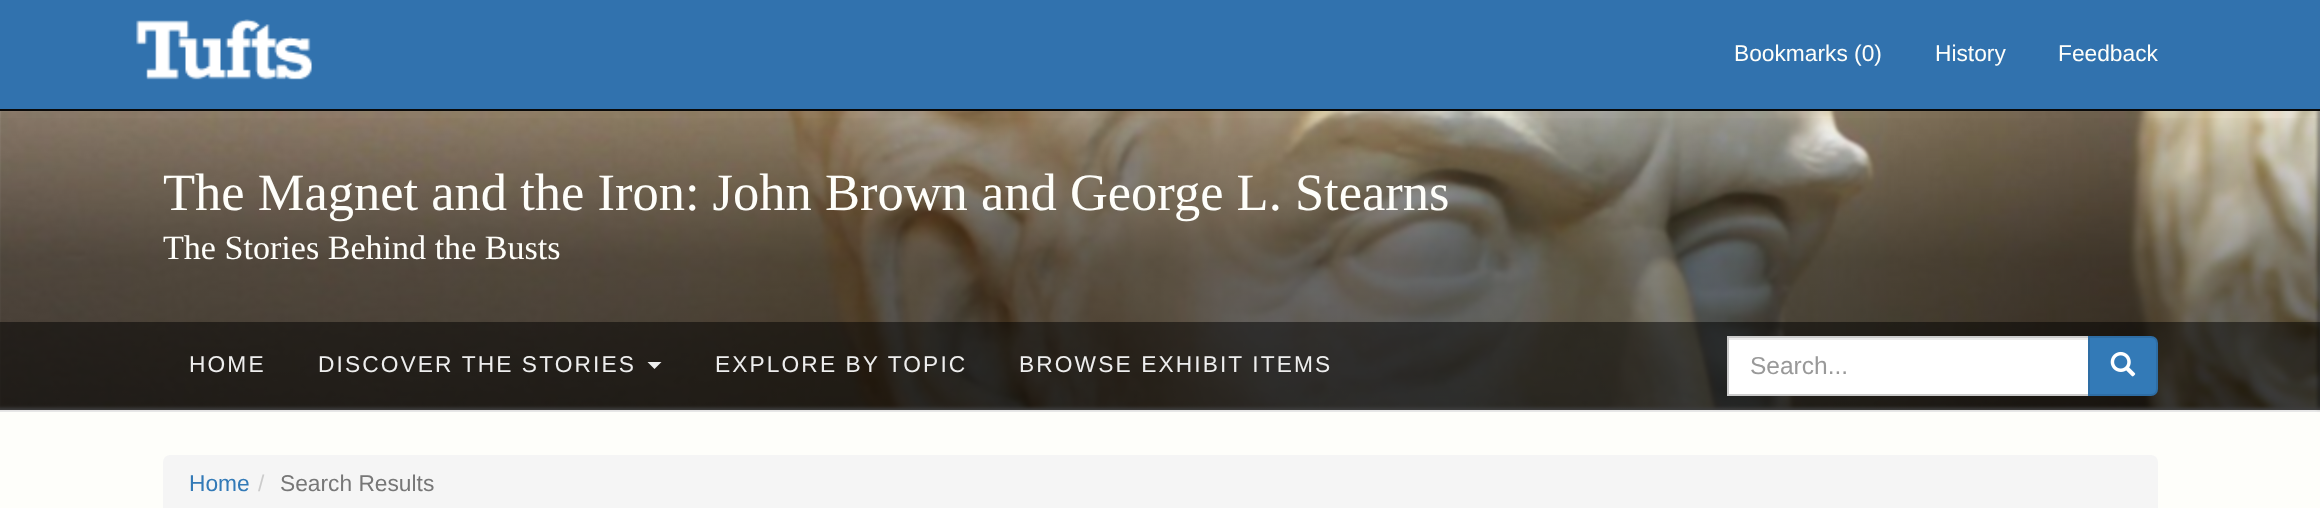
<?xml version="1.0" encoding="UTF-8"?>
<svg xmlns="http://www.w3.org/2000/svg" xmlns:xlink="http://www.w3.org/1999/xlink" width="2320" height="508">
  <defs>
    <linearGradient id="g1" gradientUnits="userSpaceOnUse" x1="1160" y1="110" x2="1160" y2="410"><stop offset="0" stop-color="#000000" stop-opacity="0" /><stop offset="0.5" stop-color="#000000" stop-opacity="0.4" /><stop offset="1" stop-color="#000000" stop-opacity="0.5" /></linearGradient>
  </defs>
  <rect width="100%" height="100%" fill="#fefefa" />
  <rect y="111" width="2320" height="299" fill="#f5f5f5" />
  <rect y="410" width="2320" height="2" fill="#e7e7e7" />
  <image x="0" y="111" width="2320" height="300" xlink:href="image2.png" />
  <rect x="2319" y="109" width="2" height="299" fill="#000000" filter="blur(2px)" />
  <rect width="2320" height="109" fill="#3172ae" />
  <rect y="109" width="2320" height="2" fill="#090909" />
  <image x="136" y="19" width="176" height="61" xlink:href="image1.png" />
  <rect y="118" width="2320" height="292" fill="url(#g1)" />
  <rect y="322" width="2320" height="88" fill="#000000" fill-opacity="0.5" />
  <path d="M 647.5 362 h 14 l -7 7 z" fill="#eeeeee" />
  <rect x="1729" y="340" width="359" height="54" fill="#ffffff" />
  <rect x="1729" y="338" width="359" height="2" fill="#ececec" />
  <rect x="1728" y="337" width="361" height="58" fill="none" stroke="#cccccc" stroke-width="2" />
  <path d="M 2089 337 h 62 c 3.5 0 6 2.5 6 6 v 46 c 0 3.5 -2.5 6 -6 6 h -62 z" fill="#337ab7" stroke="#2e6da4" stroke-width="2" />
  <image x="2110" y="351" width="26" height="26" xlink:href="image3.png" />
  <rect x="163" y="455" width="1995" height="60" rx="7" fill="#f5f5f5" />
  <text x="1734" y="61" style="font-family: Liberation Sans; font-size: 22.75px; fill: #fefefa">Bookmarks (0)</text>
  <text x="1935" y="61" style="font-family: Liberation Sans; font-size: 22.75px; fill: #fefefa">History</text>
  <text x="2058" y="61" style="font-family: Liberation Sans; font-size: 22.75px; fill: #fefefa">Feedback</text>
  <text x="163" y="210" style="font-family: Liberation Serif; font-size: 52.5px; fill: #fefefa">The Magnet and the Iron: John Brown and George L. Stearns</text>
  <text x="163" y="259" style="font-family: Liberation Serif; font-size: 34.1px; fill: #fefefa">The Stories Behind the Busts</text>
  <text x="189" y="372" style="font-family: Liberation Sans; font-size: 22.75px; letter-spacing: 2.1px; fill: #eeeeee">HOME</text>
  <text x="318" y="372" style="font-family: Liberation Sans; font-size: 22.75px; letter-spacing: 2.1px; fill: #eeeeee">DISCOVER THE STORIES</text>
  <text x="715" y="372" style="font-family: Liberation Sans; font-size: 22.75px; letter-spacing: 2.1px; fill: #eeeeee">EXPLORE BY TOPIC</text>
  <text x="1019" y="372" style="font-family: Liberation Sans; font-size: 22.75px; letter-spacing: 2.1px; fill: #eeeeee">BROWSE EXHIBIT ITEMS</text>
  <text x="1750" y="374" style="font-family: Liberation Sans; font-size: 24.5px; fill: #999999">Search...</text>
  <text x="189" y="491" style="font-family: Liberation Sans; font-size: 22.75px; fill: #337ab7">Home</text>
  <text x="258" y="491" style="font-family: Liberation Sans; font-size: 22.75px; fill: #cccccc">/</text>
  <text x="280" y="491" style="font-family: Liberation Sans; font-size: 22.75px; fill: #777777">Search Results</text>
</svg>
